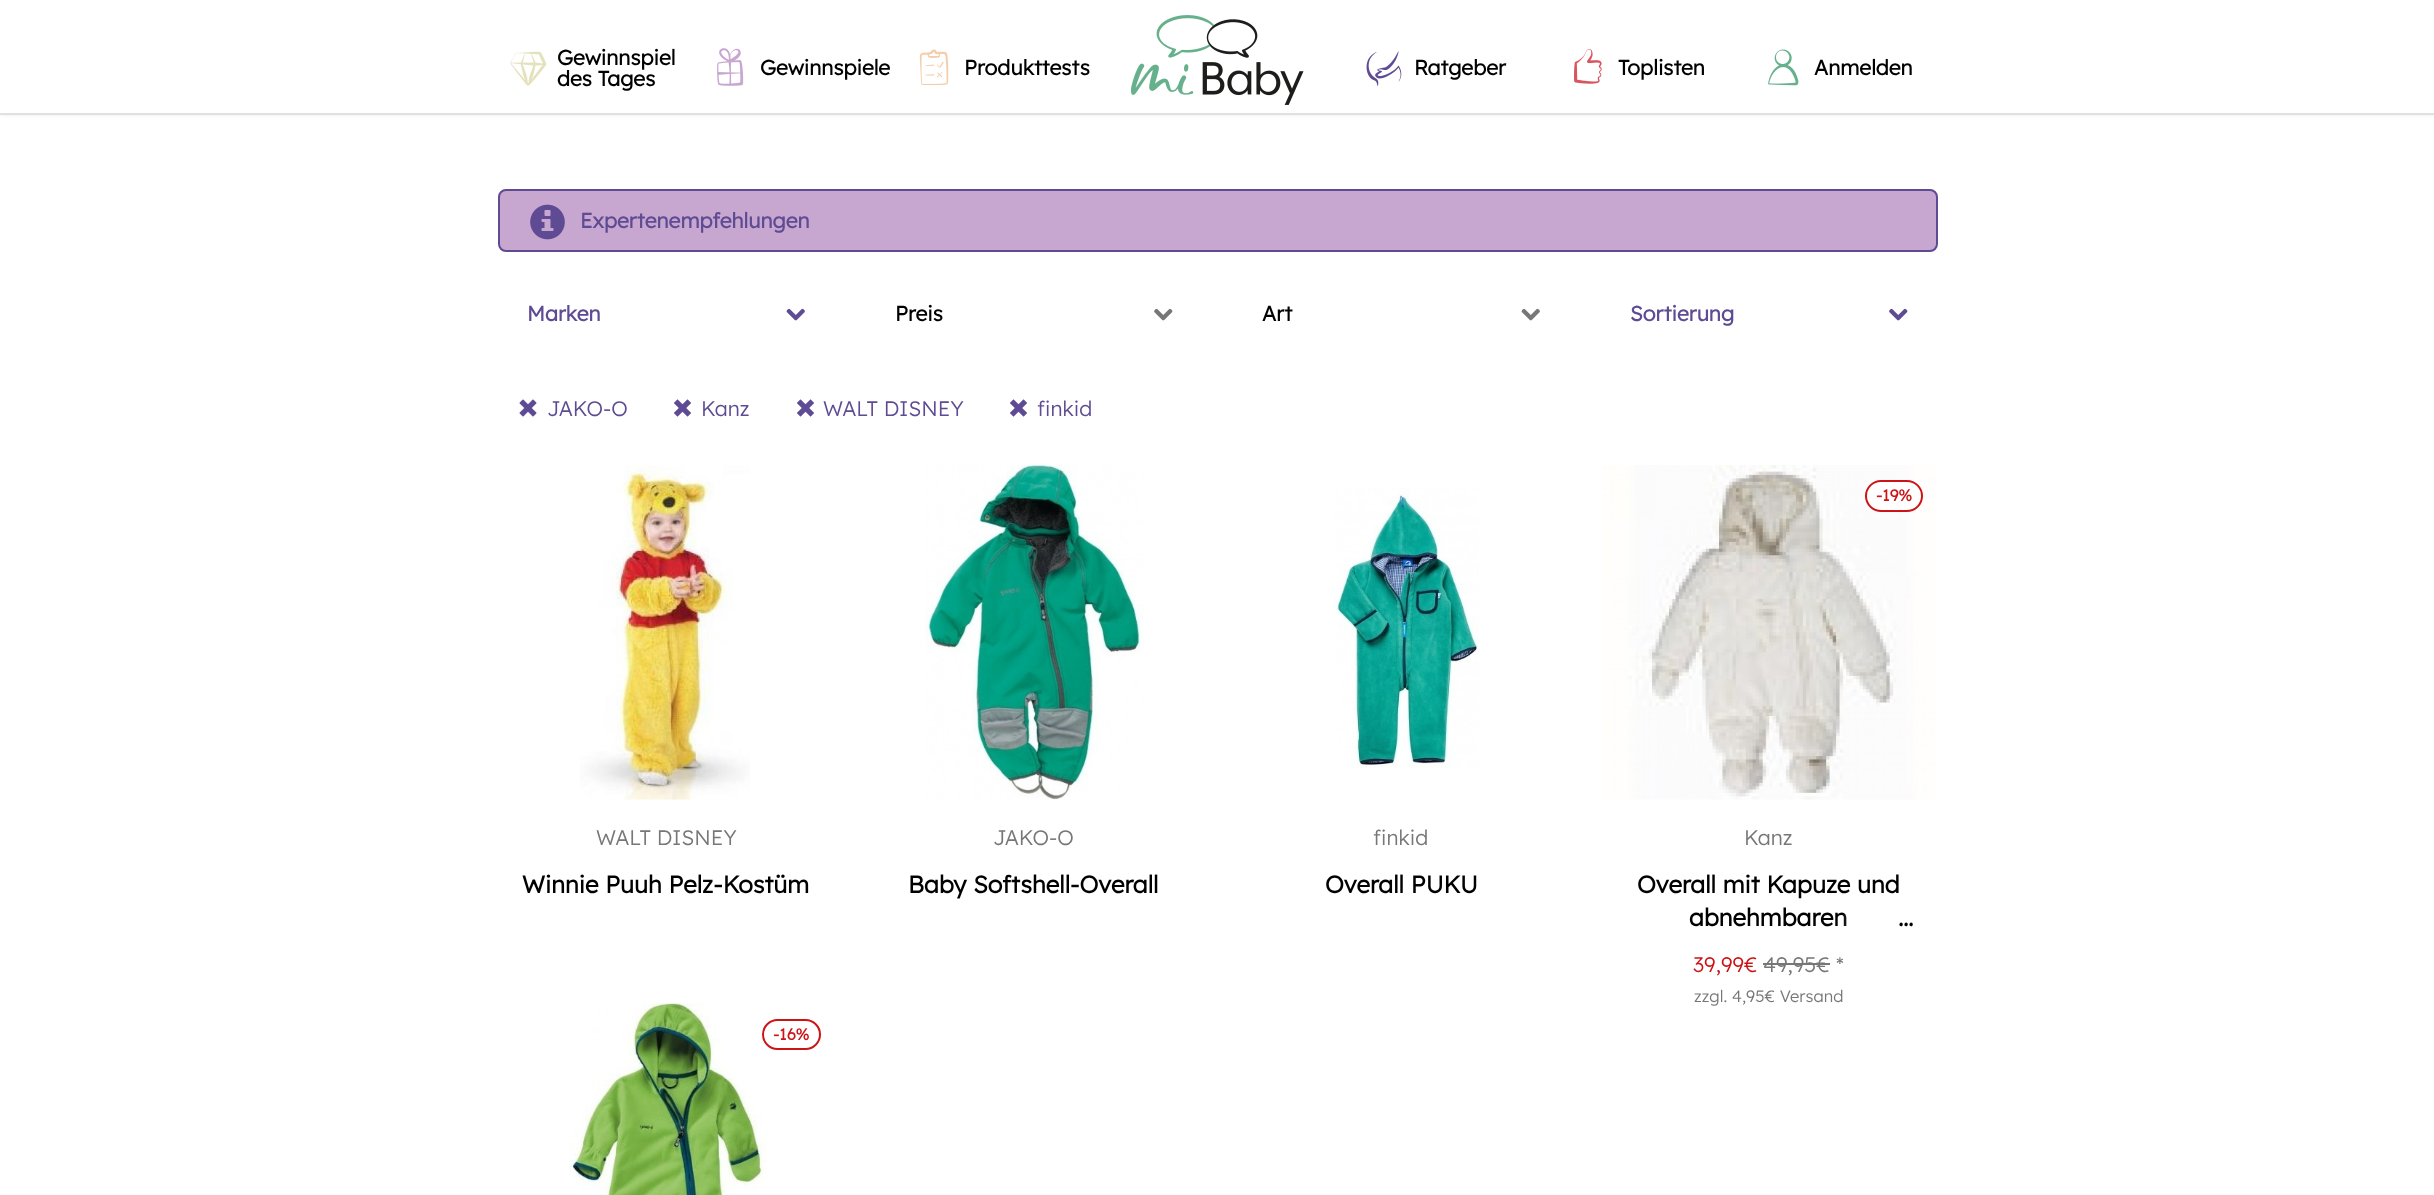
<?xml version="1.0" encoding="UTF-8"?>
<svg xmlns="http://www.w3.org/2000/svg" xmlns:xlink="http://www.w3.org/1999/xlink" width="2434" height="1195">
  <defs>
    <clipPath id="clip1"><rect x="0" y="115" width="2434" height="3" /></clipPath>
    <linearGradient id="g1" gradientUnits="userSpaceOnUse" x1="1842" y1="917" x2="1922" y2="917"><stop offset="0" stop-color="#ffffff" stop-opacity="0" /><stop offset="0.5" stop-color="#ffffff" /></linearGradient>
  </defs>
  <rect width="100%" height="100%" fill="#ffffff" />
  <g clip-path="url(#clip1)">
    <rect width="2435" height="114" fill="#e1e1e1" filter="blur(2px)" />
  </g>
  <rect y="113" width="2434" height="2" fill="#e1e1e1" />
  <image x="510" y="51" width="37" height="35" xlink:href="image1.png" />
  <image x="717" y="48" width="27" height="38" xlink:href="image2.png" />
  <image x="919" y="49" width="30" height="36" xlink:href="image3.png" />
  <image x="1131" y="15" width="173" height="90" xlink:href="image4.png" />
  <image x="1366" y="51" width="36" height="35" xlink:href="image5.png" />
  <image x="1574" y="49" width="28" height="35" xlink:href="image6.png" />
  <image x="1768" y="49" width="31" height="37" xlink:href="image7.png" />
  <rect x="499" y="190" width="1438" height="61" rx="7" fill="#c7a6cf" stroke="#5e4b93" stroke-width="2" />
  <image x="530" y="204" width="35" height="36" xlink:href="image8.png" />
  <image x="786" y="308" width="19" height="13" xlink:href="image9.png" />
  <image x="1154" y="308" width="19" height="13" xlink:href="image10.png" />
  <image x="1521" y="308" width="19" height="13" xlink:href="image11.png" />
  <image x="1889" y="308" width="19" height="13" xlink:href="image12.png" />
  <image x="519" y="399" width="18" height="18" xlink:href="image13.png" />
  <image x="674" y="399" width="17" height="18" xlink:href="image14.png" />
  <image x="797" y="399" width="17" height="18" xlink:href="image14.png" />
  <image x="1010" y="399" width="17" height="18" xlink:href="image14.png" />
  <image x="580" y="465" width="170" height="335" xlink:href="image15.png" />
  <image x="925" y="465" width="219" height="335" xlink:href="image16.png" />
  <image x="1334" y="488" width="145" height="280" xlink:href="image17.png" />
  <image x="1602" y="465" width="334" height="335" xlink:href="image18.png" />
  <rect x="1866" y="481" width="56" height="30" rx="15" fill="#ffffff" stroke="#cc1417" stroke-width="2" />
  <rect x="1763" y="963" width="67" height="2" fill="#777777" />
  <image x="569" y="1003" width="198" height="192" xlink:href="image19.png" />
  <rect x="763" y="1020" width="57" height="29" rx="14.5" fill="none" stroke="#cc1417" stroke-width="2" />
  <text x="557" y="65" style="font-family: Lexend; font-size: 21px; font-weight: bold; fill: #000000">Gewinnspiel</text>
  <text x="557" y="86" style="font-family: Lexend; font-size: 21px; font-weight: bold; fill: #000000">des Tages</text>
  <text x="760" y="75" style="font-family: Lexend; font-size: 21px; font-weight: bold; fill: #000000">Gewinnspiele</text>
  <text x="964" y="75" style="font-family: Lexend; font-size: 21px; font-weight: bold; fill: #000000">Produkttests</text>
  <text x="1414" y="75" style="font-family: Lexend; font-size: 21px; font-weight: bold; fill: #000000">Ratgeber</text>
  <text x="1618" y="75" style="font-family: Lexend; font-size: 21px; font-weight: bold; fill: #000000">Toplisten</text>
  <text x="1814" y="75" style="font-family: Lexend; font-size: 21px; font-weight: bold; fill: #000000">Anmelden</text>
  <text x="580" y="228" style="font-family: Lexend; font-size: 21px; font-weight: bold; fill: #5e4b93">Expertenempfehlungen</text>
  <text x="527" y="321" style="font-family: Lexend; font-size: 21px; font-weight: bold; fill: #5e4b93">Marken</text>
  <text x="895" y="321" style="font-family: Lexend; font-size: 21px; font-weight: bold; fill: #000000">Preis</text>
  <text x="1262" y="321" style="font-family: Lexend; font-size: 21px; font-weight: bold; fill: #000000">Art</text>
  <text x="1630" y="321" style="font-family: Lexend; font-size: 21px; font-weight: bold; fill: #5e4b93">Sortierung</text>
  <text x="547" y="416" style="font-family: Lexend; font-size: 21px; font-weight: 300; fill: #5e4b93">JAKO-O</text>
  <text x="701" y="416" style="font-family: Lexend; font-size: 21px; font-weight: 300; fill: #5e4b93">Kanz</text>
  <text x="823" y="416" style="font-family: Lexend; font-size: 21px; font-weight: 300; fill: #5e4b93">WALT DISNEY</text>
  <text x="1037" y="416" style="font-family: Lexend; font-size: 21px; font-weight: 300; fill: #5e4b93">finkid</text>
  <text x="596" y="845" style="font-family: Lexend; font-size: 21px; font-weight: 300; fill: #777777">WALT DISNEY</text>
  <text x="522" y="893" style="font-family: Lexend; font-size: 24px; font-weight: bold; fill: #000000">Winnie Puuh Pelz-Kostüm</text>
  <text x="993" y="845" style="font-family: Lexend; font-size: 21px; font-weight: 300; fill: #777777">JAKO-O</text>
  <text x="908" y="893" style="font-family: Lexend; font-size: 24px; font-weight: bold; fill: #000000">Baby Softshell-Overall</text>
  <text x="1373" y="845" style="font-family: Lexend; font-size: 21px; font-weight: 300; fill: #777777">finkid</text>
  <text x="1325" y="893" style="font-family: Lexend; font-size: 24px; font-weight: bold; fill: #000000">Overall PUKU</text>
  <text x="1876" y="501" style="font-family: Lexend; font-size: 16px; font-weight: bold; fill: #cc1417">-19%</text>
  <text x="1744" y="845" style="font-family: Lexend; font-size: 21px; font-weight: 300; fill: #777777">Kanz</text>
  <text x="1637" y="893" style="font-family: Lexend; font-size: 24px; font-weight: bold; fill: #000000">Overall mit Kapuze und</text>
  <text x="1689" y="926" style="font-family: Lexend; font-size: 24px; font-weight: bold; fill: #000000">abnehmbaren</text>
  <rect x="1843" y="913" width="3" height="13" fill="url(#g1)" />
  <text x="1898" y="926" style="font-family: Lexend; font-size: 24px; font-weight: bold; fill: #000000">…</text>
  <text x="1693" y="972" style="font-family: Lexend; font-size: 21px; font-weight: 300; fill: #cc1417">39,99€</text>
  <text x="1763" y="972" style="font-family: Lexend; font-size: 21px; font-weight: 300; fill: #777777">49,95€ *</text>
  <text x="1694" y="1002" style="font-family: Lexend; font-size: 16.5px; font-weight: 300; fill: #777777">zzgl. 4,95€ Versand</text>
  <text x="773" y="1040" style="font-family: Lexend; font-size: 16px; font-weight: bold; fill: #cc1417">-16%</text>
</svg>
